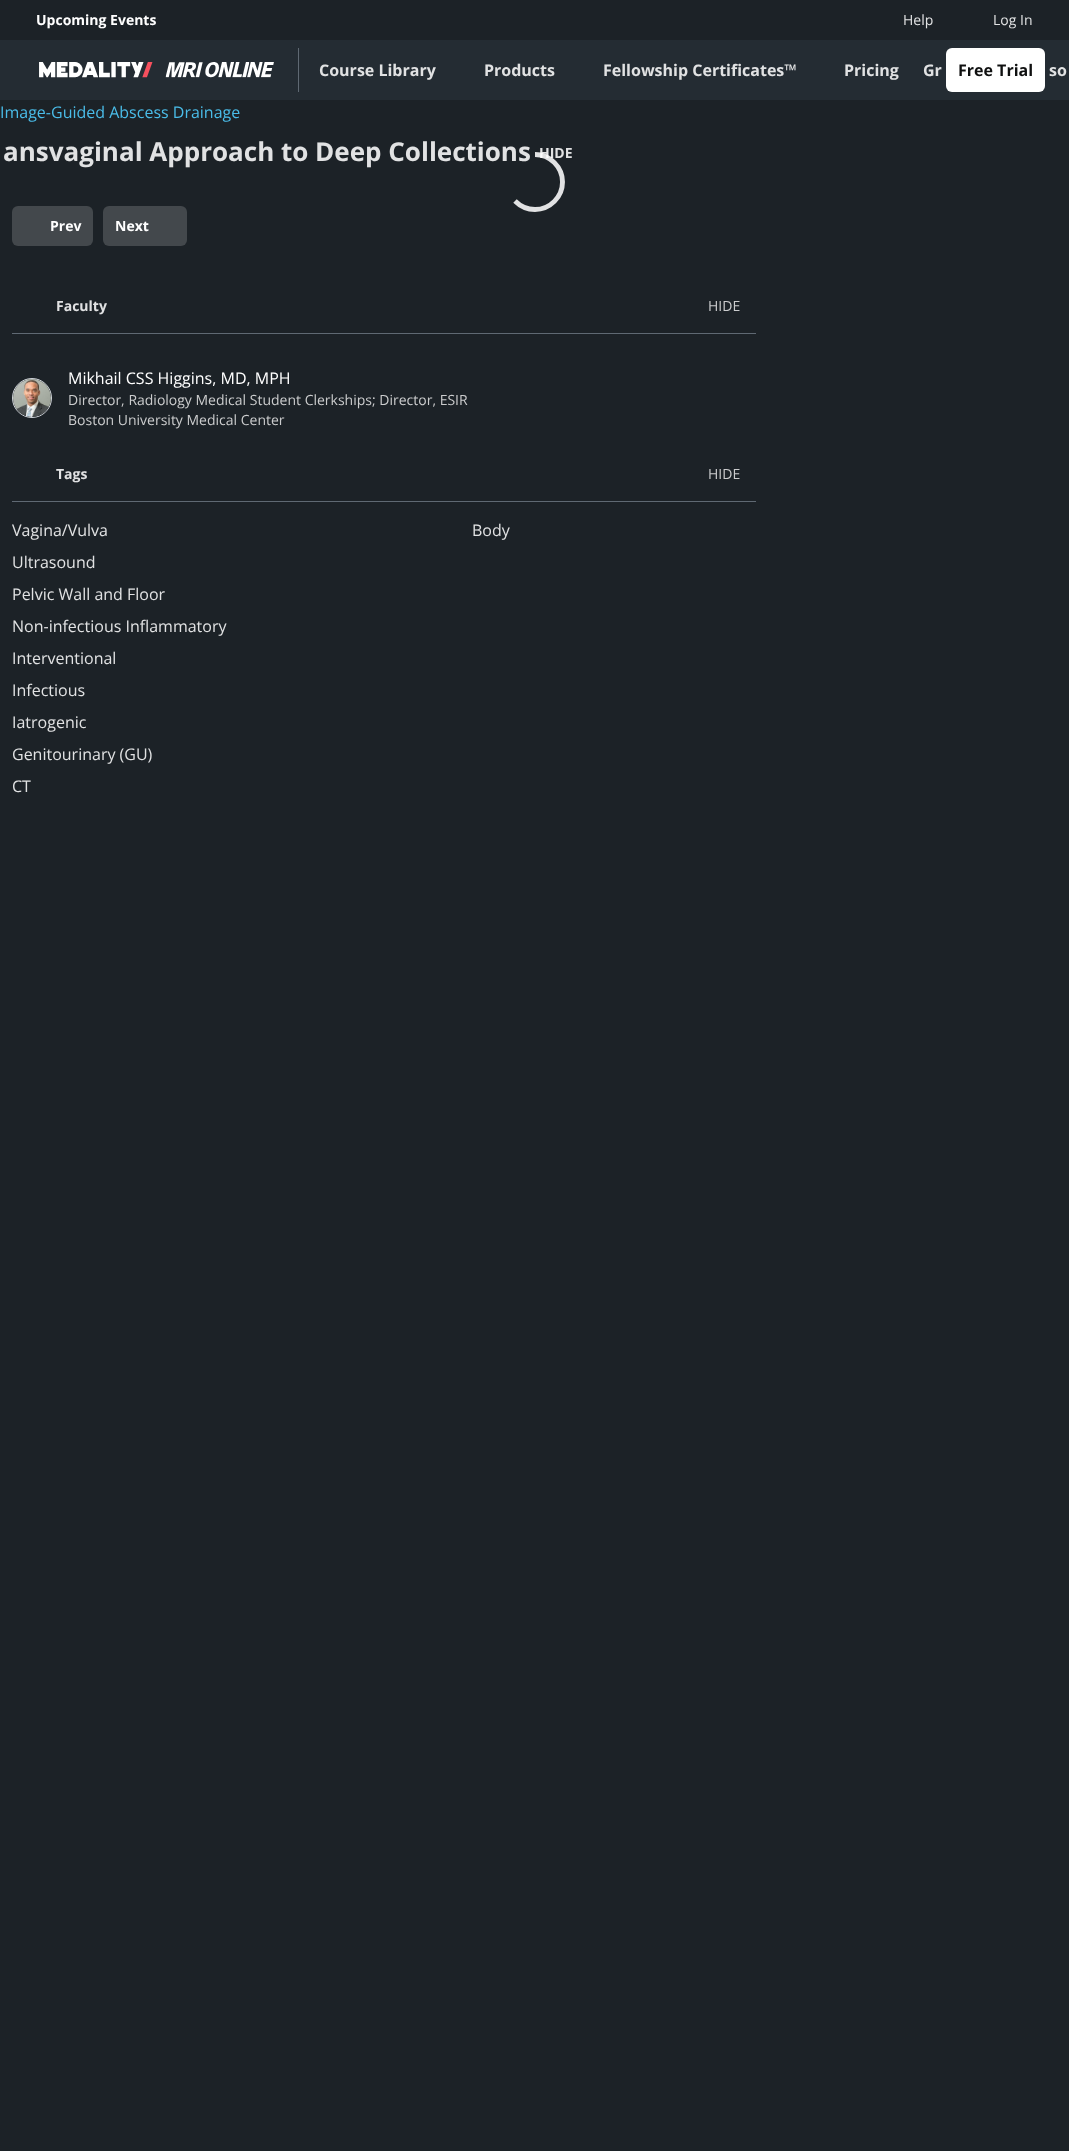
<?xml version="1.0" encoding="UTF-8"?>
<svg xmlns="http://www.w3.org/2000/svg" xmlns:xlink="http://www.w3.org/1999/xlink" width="1069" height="2151">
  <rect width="100%" height="100%" fill="#1c2227" />
  <rect y="40" width="1069" height="60" fill="#242c33" />
  <rect x="298" y="48" width="1" height="44" fill="#5f6973" />
  <image x="39" y="62" width="235" height="16" xlink:href="image1.png" />
  <rect x="946" y="48" width="99" height="44" rx="6" fill="#ffffff" />
  <rect x="12" y="206" width="81" height="40" rx="6" fill="#43484c" />
  <rect x="103" y="206" width="84" height="40" rx="6" fill="#43484c" />
  <rect x="12" y="333" width="744" height="1" fill="#5f6973" />
  <circle cx="32" cy="398" r="19.5" fill="none" stroke="#d1d5db" />
  <image x="13" y="379" width="38" height="38" xlink:href="image2.png" />
  <rect x="12" y="501" width="744" height="1" fill="#5f6973" />
  <text x="36" y="25" style="font-family: Open Sans; font-size: 14px; font-weight: bold; fill: #ffffff">Upcoming Events</text>
  <text x="903" y="25" style="font-family: Open Sans; font-size: 14px; fill: #e1e2e3">Help</text>
  <text x="993" y="25" style="font-family: Open Sans; font-size: 14px; fill: #e1e2e3">Log In</text>
  <text x="319" y="76" style="font-family: Open Sans; font-size: 16px; font-weight: bold; fill: #e1e2e3">Course Library</text>
  <text x="484" y="76" style="font-family: Open Sans; font-size: 16px; font-weight: bold; fill: #e1e2e3">Products</text>
  <text x="603" y="76" style="font-family: Open Sans; font-size: 16px; font-weight: bold; fill: #e1e2e3">Fellowship Certificates™</text>
  <text x="844" y="76" style="font-family: Open Sans; font-size: 16px; font-weight: bold; fill: #e1e2e3">Pricing</text>
  <text x="923" y="76" style="font-family: Open Sans; font-size: 16px; font-weight: bold; fill: #e1e2e3">Gr</text>
  <text x="1049" y="76" style="font-family: Open Sans; font-size: 16px; font-weight: bold; fill: #e1e2e3">so</text>
  <text x="958" y="76" style="font-family: Open Sans; font-size: 16px; font-weight: bold; fill: #0f1010">Free Trial</text>
  <text x="0" y="118" style="font-family: Open Sans; font-size: 16px; fill: #4abce8">Image-Guided Abscess Drainage</text>
  <text x="3" y="161" style="font-family: Open Sans; font-size: 26px; font-weight: bold; fill: #e1e2e3">ansvaginal Approach to Deep Collections</text>
  <text x="539" y="158" style="font-family: Open Sans; font-size: 14px; font-weight: bold; fill: #e1e2e3">HIDE</text>
  <path d="M 535 154.5 c 15 0 27.5 12.5 27.5 27.5 c 0 15 -12.5 27.5 -27.5 27.5 c -8 0 -15 -3.5 -20 -8.5" fill="none" stroke="#ffffff" stroke-opacity="0.87" stroke-width="4.9" />
  <text x="50" y="231" style="font-family: Open Sans; font-size: 14px; font-weight: bold; fill: #ffffff">Prev</text>
  <text x="115" y="231" style="font-family: Open Sans; font-size: 14px; font-weight: bold; fill: #ffffff">Next</text>
  <text x="56" y="311" style="font-family: Open Sans; font-size: 14px; font-weight: bold; fill: #e1e2e3">Faculty</text>
  <text x="708" y="311" style="font-family: Open Sans; font-size: 14px; fill: #cbcccd">HIDE</text>
  <text x="68" y="384" style="font-family: Open Sans; font-size: 16px; fill: #ffffff">Mikhail CSS Higgins, MD, MPH</text>
  <text x="68" y="405" style="font-family: Open Sans; font-size: 14px; fill: #cbcccd">Director, Radiology Medical Student Clerkships; Director, ESIR</text>
  <text x="68" y="425" style="font-family: Open Sans; font-size: 14px; fill: #cbcccd">Boston University Medical Center</text>
  <text x="56" y="479" style="font-family: Open Sans; font-size: 14px; font-weight: bold; fill: #e1e2e3">Tags</text>
  <text x="708" y="479" style="font-family: Open Sans; font-size: 14px; fill: #cbcccd">HIDE</text>
  <text x="12" y="536" style="font-family: Open Sans; font-size: 16px; fill: #e1e2e3">Vagina/Vulva</text>
  <text x="472" y="536" style="font-family: Open Sans; font-size: 16px; fill: #e1e2e3">Body</text>
  <text x="12" y="568" style="font-family: Open Sans; font-size: 16px; fill: #e1e2e3">Ultrasound</text>
  <text x="12" y="600" style="font-family: Open Sans; font-size: 16px; fill: #e1e2e3">Pelvic Wall and Floor</text>
  <text x="12" y="632" style="font-family: Open Sans; font-size: 16px; fill: #e1e2e3">Non-infectious Inflammatory</text>
  <text x="12" y="664" style="font-family: Open Sans; font-size: 16px; fill: #e1e2e3">Interventional</text>
  <text x="12" y="696" style="font-family: Open Sans; font-size: 16px; fill: #e1e2e3">Infectious</text>
  <text x="12" y="728" style="font-family: Open Sans; font-size: 16px; fill: #e1e2e3">Iatrogenic</text>
  <text x="12" y="760" style="font-family: Open Sans; font-size: 16px; fill: #e1e2e3">Genitourinary (GU)</text>
  <text x="12" y="792" style="font-family: Open Sans; font-size: 16px; fill: #e1e2e3">CT</text>
</svg>
